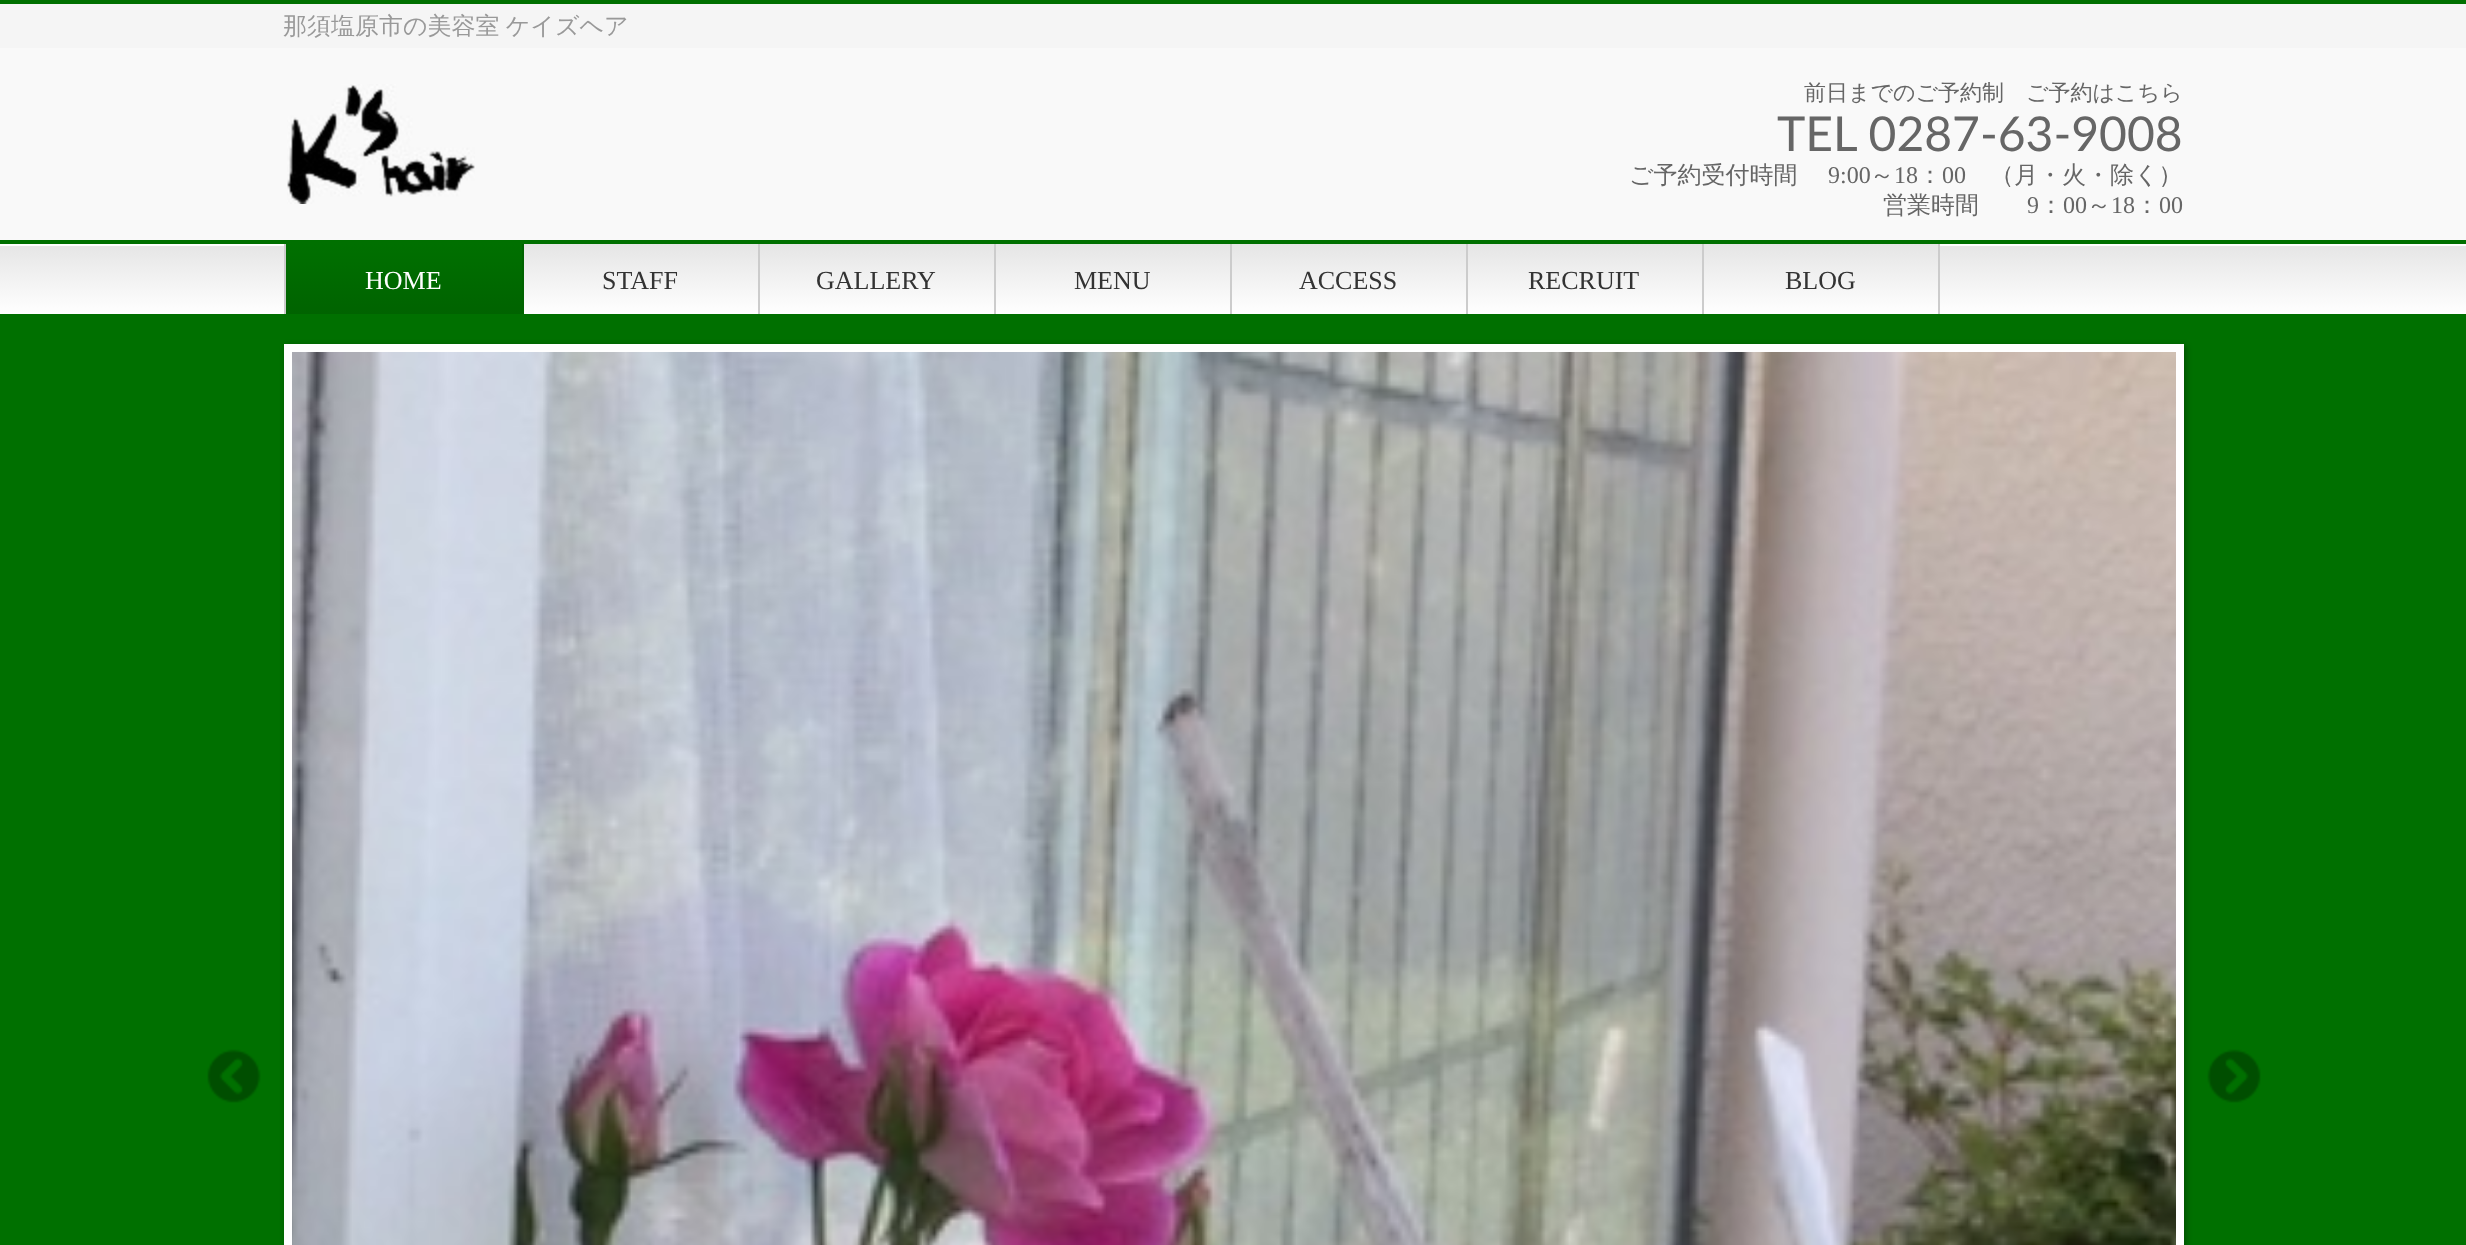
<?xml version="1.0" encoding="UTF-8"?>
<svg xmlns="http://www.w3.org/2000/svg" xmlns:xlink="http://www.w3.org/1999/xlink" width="2466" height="1245">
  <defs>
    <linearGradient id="g1" gradientUnits="userSpaceOnUse" x1="0" y1="244" x2="0" y2="314"><stop offset="0" stop-color="#e5e5e5" /><stop offset="1" stop-color="#ffffff" /></linearGradient>
    <linearGradient id="g2" gradientUnits="userSpaceOnUse" x1="404" y1="244" x2="404" y2="314"><stop offset="0" stop-color="#007000" /><stop offset="1" stop-color="#006300" /></linearGradient>
    <linearGradient id="g3" gradientUnits="userSpaceOnUse" x1="524" y1="244" x2="524" y2="314"><stop offset="0" stop-color="#e5e5e5" /><stop offset="1" stop-color="#ffffff" /></linearGradient>
    <linearGradient id="g4" gradientUnits="userSpaceOnUse" x1="760" y1="244" x2="760" y2="314"><stop offset="0" stop-color="#e5e5e5" /><stop offset="1" stop-color="#ffffff" /></linearGradient>
    <linearGradient id="g5" gradientUnits="userSpaceOnUse" x1="996" y1="244" x2="996" y2="314"><stop offset="0" stop-color="#e5e5e5" /><stop offset="1" stop-color="#ffffff" /></linearGradient>
    <linearGradient id="g6" gradientUnits="userSpaceOnUse" x1="1232" y1="244" x2="1232" y2="314"><stop offset="0" stop-color="#e5e5e5" /><stop offset="1" stop-color="#ffffff" /></linearGradient>
    <linearGradient id="g7" gradientUnits="userSpaceOnUse" x1="1468" y1="244" x2="1468" y2="314"><stop offset="0" stop-color="#e5e5e5" /><stop offset="1" stop-color="#ffffff" /></linearGradient>
    <linearGradient id="g8" gradientUnits="userSpaceOnUse" x1="1704" y1="244" x2="1704" y2="314"><stop offset="0" stop-color="#e5e5e5" /><stop offset="1" stop-color="#ffffff" /></linearGradient>
  </defs>
  <rect width="100%" height="100%" fill="#f9f9f9" />
  <rect y="4" width="2466" height="44" fill="#f5f5f5" />
  <rect width="2466" height="4" fill="#007000" />
  <image x="287" y="84" width="188" height="120" xlink:href="image1.png" />
  <rect y="246" width="2466" height="68" fill="url(#g1)" />
  <rect y="244" width="2466" height="2" fill="#ffffff" />
  <rect y="240" width="2466" height="4" fill="#007000" />
  <rect x="284" y="244" width="2" height="70" fill="#cccccc" />
  <rect x="286" y="244" width="236" height="70" fill="url(#g2)" />
  <rect x="522" y="244" width="2" height="70" fill="#006300" />
  <rect x="524" y="244" width="234" height="2" fill="url(#g3)" />
  <rect x="758" y="244" width="2" height="70" fill="#cccccc" />
  <rect x="760" y="244" width="234" height="2" fill="url(#g4)" />
  <rect x="994" y="244" width="2" height="70" fill="#cccccc" />
  <rect x="996" y="244" width="234" height="2" fill="url(#g5)" />
  <rect x="1230" y="244" width="2" height="70" fill="#cccccc" />
  <rect x="1232" y="244" width="234" height="2" fill="url(#g6)" />
  <rect x="1466" y="244" width="2" height="70" fill="#cccccc" />
  <rect x="1468" y="244" width="234" height="2" fill="url(#g7)" />
  <rect x="1702" y="244" width="2" height="70" fill="#cccccc" />
  <rect x="1704" y="244" width="234" height="2" fill="url(#g8)" />
  <rect x="1938" y="244" width="2" height="70" fill="#cccccc" />
  <rect y="314" width="2466" height="931" fill="#007000" />
  <rect x="286" y="346" width="1900" height="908" fill="#000000" fill-opacity="0.3" filter="blur(3px)" />
  <rect x="284" y="344" width="1900" height="901" fill="#ffffff" />
  <image x="292" y="352" width="1884" height="893" xlink:href="image2.png" />
  <image x="207" y="1049" width="54" height="54" xlink:href="image3.png" />
  <image x="2207" y="1049" width="54" height="54" xlink:href="image4.png" />
  <text x="283" y="34" word-spacing="-1" style="font-family: WenQuanYi Zen Hei; font-size: 24px; font-weight: 500; fill: #999999">那須塩原市の美容室 ケイズヘア</text>
  <text x="1804" y="100" style="font-family: WenQuanYi Zen Hei; font-size: 22px; font-weight: 500; fill: #666666">前日までのご予約制　ご予約はこちら</text>
  <text x="1777" y="151" style="font-family: Lato; font-size: 48px; fill: #666666">TEL 0287-63-9008</text>
  <text x="1629" y="183" style="font-family: WenQuanYi Zen Hei; font-size: 24px; font-weight: 500; fill: #666666">ご予約受付時間</text>
  <text x="1828" y="183" style="font-family: Liberation Serif; font-size: 24px; fill: #666666">9:00</text>
  <text x="1870" y="183" style="font-family: WenQuanYi Zen Hei; font-size: 24px; font-weight: 500; fill: #666666">～</text>
  <text x="1894" y="183" style="font-family: Liberation Serif; font-size: 24px; fill: #666666">18</text>
  <text x="1918" y="183" style="font-family: WenQuanYi Zen Hei; font-size: 24px; font-weight: 500; fill: #666666">：</text>
  <text x="1942" y="183" style="font-family: Liberation Serif; font-size: 24px; fill: #666666">00</text>
  <text x="1990" y="183" style="font-family: WenQuanYi Zen Hei; font-size: 24px; font-weight: 500; fill: #666666">（月・火・除く）</text>
  <text x="1883" y="213" style="font-family: WenQuanYi Zen Hei; font-size: 24px; font-weight: 500; fill: #666666">営業時間</text>
  <text x="2027" y="213" style="font-family: Liberation Serif; font-size: 24px; fill: #666666">9</text>
  <text x="2039" y="213" style="font-family: WenQuanYi Zen Hei; font-size: 24px; font-weight: 500; fill: #666666">：</text>
  <text x="2063" y="213" style="font-family: Liberation Serif; font-size: 24px; fill: #666666">00</text>
  <text x="2087" y="213" style="font-family: WenQuanYi Zen Hei; font-size: 24px; font-weight: 500; fill: #666666">～</text>
  <text x="2111" y="213" style="font-family: Liberation Serif; font-size: 24px; fill: #666666">18</text>
  <text x="2135" y="213" style="font-family: WenQuanYi Zen Hei; font-size: 24px; font-weight: 500; fill: #666666">：</text>
  <text x="2159" y="213" style="font-family: Liberation Serif; font-size: 24px; fill: #666666">00</text>
  <text x="365" y="289" style="font-family: Liberation Serif; font-size: 26px; fill: #ffffff">HOME</text>
  <text x="602" y="289" style="font-family: Liberation Serif; font-size: 26px; fill: #333333">STAFF</text>
  <text x="816" y="289" style="font-family: Liberation Serif; font-size: 26px; fill: #333333">GALLERY</text>
  <text x="1074" y="289" style="font-family: Liberation Serif; font-size: 26px; fill: #333333">MENU</text>
  <text x="1299" y="289" style="font-family: Liberation Serif; font-size: 26px; fill: #333333">ACCESS</text>
  <text x="1528" y="289" style="font-family: Liberation Serif; font-size: 26px; fill: #333333">RECRUIT</text>
  <text x="1785" y="289" style="font-family: Liberation Serif; font-size: 26px; fill: #333333">BLOG</text>
</svg>
